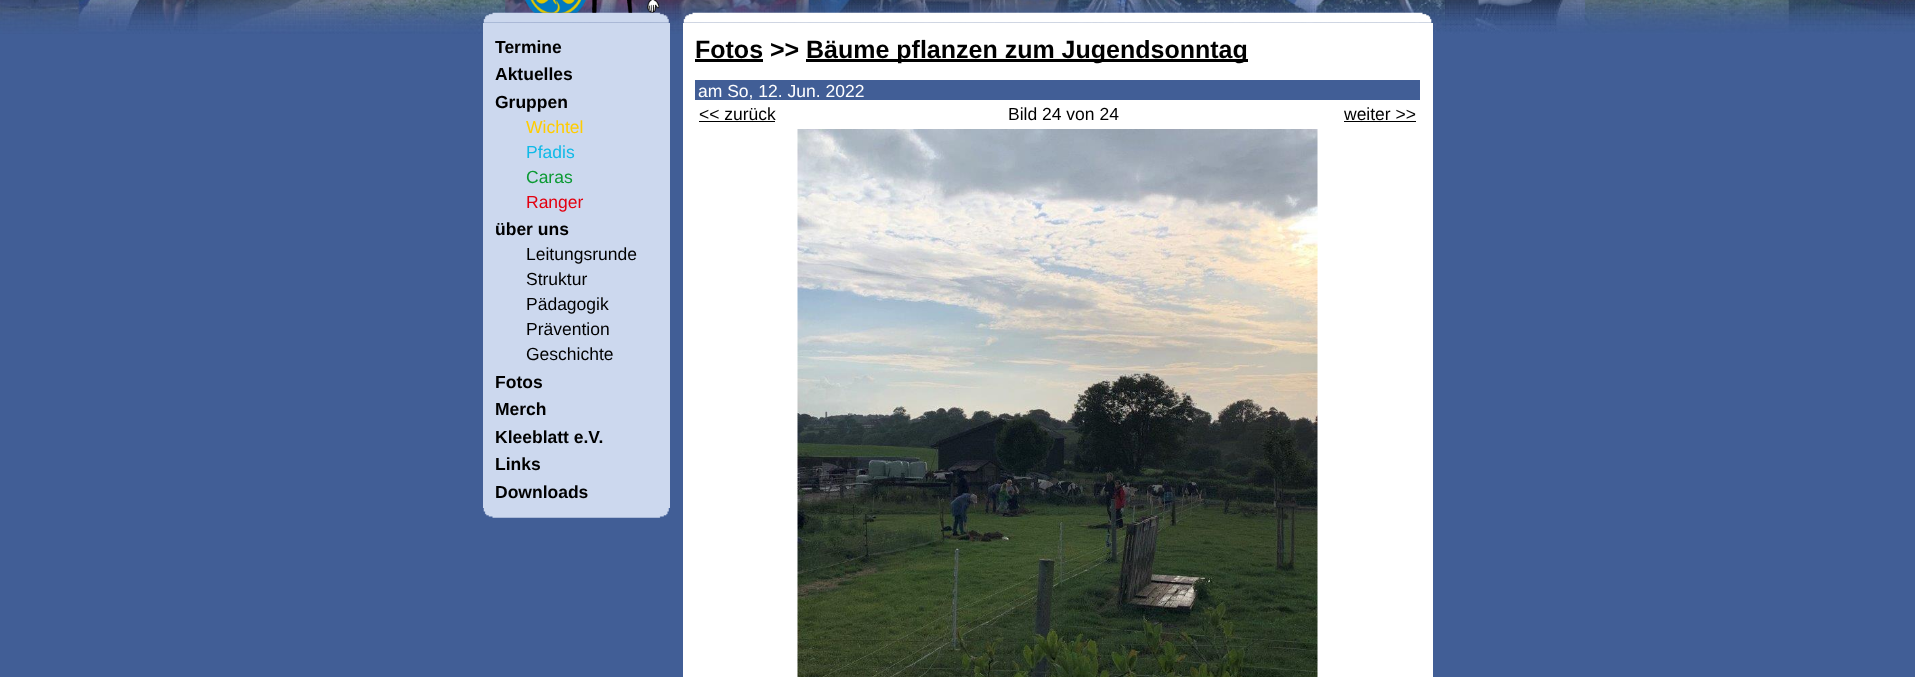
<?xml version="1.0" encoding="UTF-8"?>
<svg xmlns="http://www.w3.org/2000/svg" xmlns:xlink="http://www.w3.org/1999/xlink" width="1915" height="677">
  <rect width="100%" height="100%" fill="#415e96" />
  <image x="0" y="0" width="1915" height="34" xlink:href="image1.png" />
  <image x="483" y="12" width="186" height="11" xlink:href="image3.png" />
  <image x="525" y="0" width="135" height="13" xlink:href="image2.png" />
  <rect x="483" y="23" width="187" height="485" fill="#ccd8ee" />
  <image x="483" y="508" width="186" height="10" xlink:href="image4.png" />
  <image x="683" y="12" width="749" height="11" xlink:href="image5.png" />
  <rect x="683" y="23" width="750" height="654" fill="#ffffff" />
  <rect x="695" y="59" width="68" height="3" fill="#000000" />
  <rect x="806" y="59" width="442" height="3" fill="#000000" />
  <rect x="695" y="80" width="725" height="20" fill="#415e96" />
  <rect x="699" y="121" width="76" height="1" fill="#000000" />
  <rect x="1344" y="121" width="72" height="1" fill="#000000" />
  <image x="797" y="129" width="521" height="548" xlink:href="image6.png" />
  <text x="495" y="53" style="font-family: Liberation Sans; font-size: 17.5px; font-weight: bold; fill: #000000">Termine</text>
  <text x="495" y="80" style="font-family: Liberation Sans; font-size: 17.5px; font-weight: bold; fill: #000000">Aktuelles</text>
  <text x="495" y="108" style="font-family: Liberation Sans; font-size: 17.5px; font-weight: bold; fill: #000000">Gruppen</text>
  <text x="526" y="133" style="font-family: Liberation Sans; font-size: 17.5px; fill: #ffcc00">Wichtel</text>
  <text x="526" y="158" style="font-family: Liberation Sans; font-size: 17.5px; fill: #10bae7">Pfadis</text>
  <text x="526" y="183" style="font-family: Liberation Sans; font-size: 17.5px; fill: #0b9a33">Caras</text>
  <text x="526" y="208" style="font-family: Liberation Sans; font-size: 17.5px; fill: #e3000f">Ranger</text>
  <text x="495" y="235" style="font-family: Liberation Sans; font-size: 17.5px; font-weight: bold; fill: #000000">über uns</text>
  <text x="526" y="260" style="font-family: Liberation Sans; font-size: 17.5px; fill: #000000">Leitungsrunde</text>
  <text x="526" y="285" style="font-family: Liberation Sans; font-size: 17.5px; fill: #000000">Struktur</text>
  <text x="526" y="310" style="font-family: Liberation Sans; font-size: 17.5px; fill: #000000">Pädagogik</text>
  <text x="526" y="335" style="font-family: Liberation Sans; font-size: 17.5px; fill: #000000">Prävention</text>
  <text x="526" y="360" style="font-family: Liberation Sans; font-size: 17.5px; fill: #000000">Geschichte</text>
  <text x="495" y="388" style="font-family: Liberation Sans; font-size: 17.5px; font-weight: bold; fill: #000000">Fotos</text>
  <text x="495" y="415" style="font-family: Liberation Sans; font-size: 17.5px; font-weight: bold; fill: #000000">Merch</text>
  <text x="495" y="443" style="font-family: Liberation Sans; font-size: 17.5px; font-weight: bold; fill: #000000">Kleeblatt e.V.</text>
  <text x="495" y="470" style="font-family: Liberation Sans; font-size: 17.5px; font-weight: bold; fill: #000000">Links</text>
  <text x="495" y="498" style="font-family: Liberation Sans; font-size: 17.5px; font-weight: bold; fill: #000000">Downloads</text>
  <text x="695" y="58" style="font-family: Liberation Sans; font-size: 25px; font-weight: bold; fill: #000000">Fotos &gt;&gt;</text>
  <text x="806" y="58" style="font-family: Liberation Sans; font-size: 25px; font-weight: bold; fill: #000000">Bäume pflanzen zum Jugendsonntag</text>
  <text x="698" y="97" style="font-family: Liberation Sans; font-size: 17.5px; fill: #ffffff">am So, 12. Jun. 2022</text>
  <text x="699" y="120" style="font-family: Liberation Sans; font-size: 17.5px; fill: #000000">&lt;&lt; zurück</text>
  <text x="1008" y="120" style="font-family: Liberation Sans; font-size: 17.5px; fill: #000000">Bild 24 von 24</text>
  <text x="1344" y="120" style="font-family: Liberation Sans; font-size: 17.5px; fill: #000000">weiter &gt;&gt;</text>
</svg>
